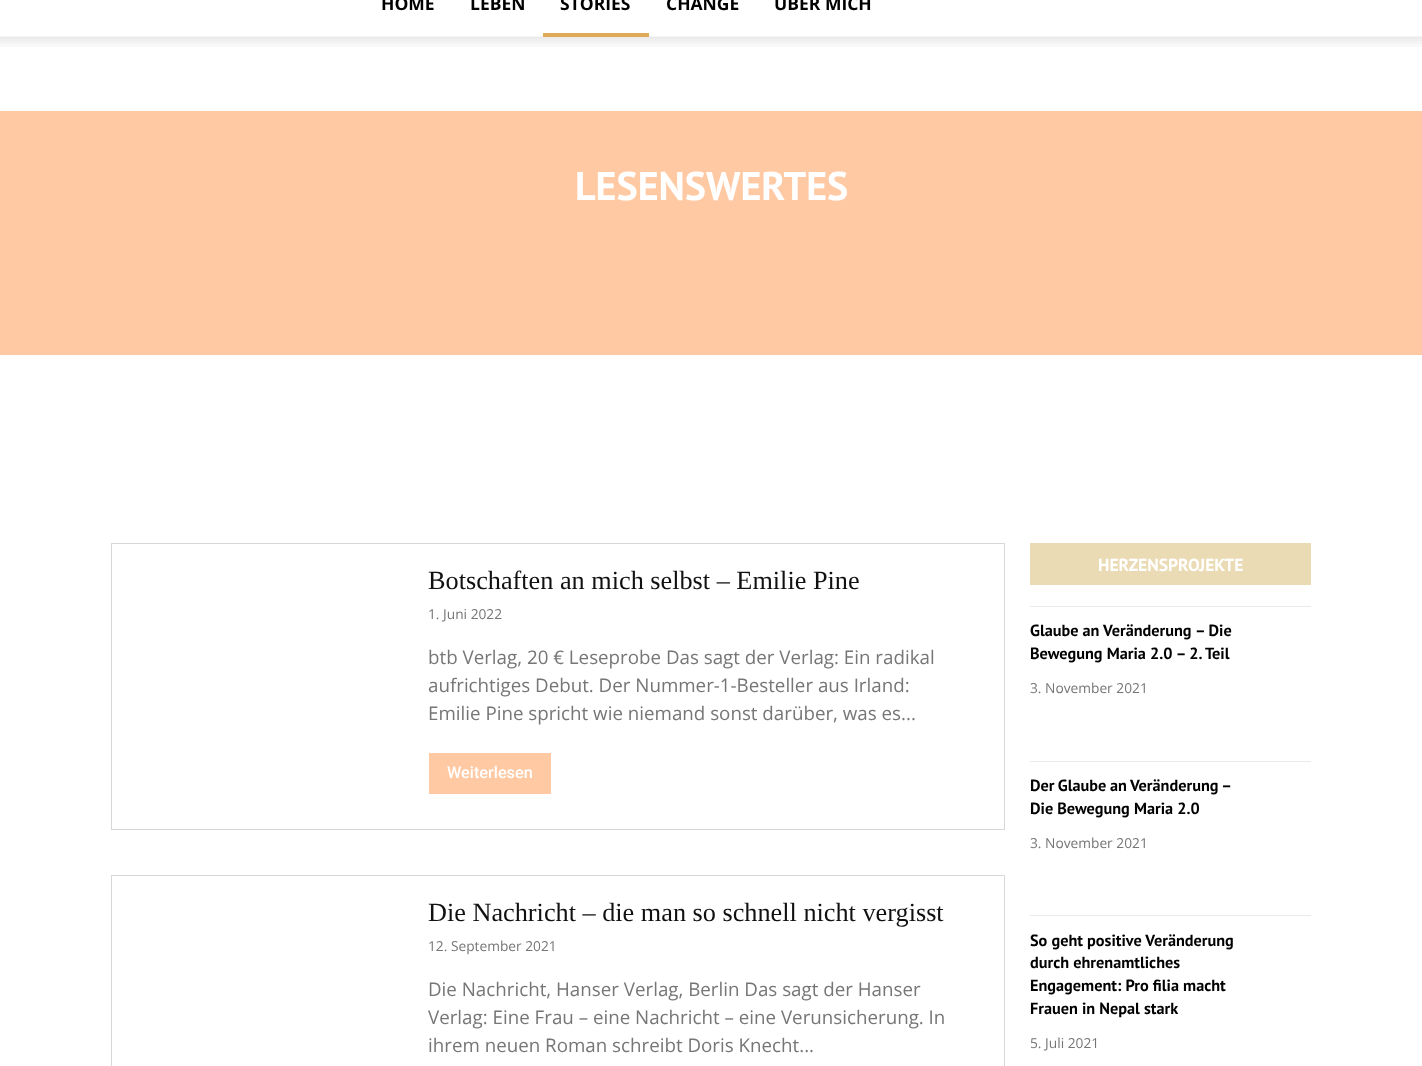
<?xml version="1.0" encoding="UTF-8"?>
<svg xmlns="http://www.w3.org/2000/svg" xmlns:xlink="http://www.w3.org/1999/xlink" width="1422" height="1066">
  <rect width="100%" height="100%" fill="#ffffff" />
  <image x="0" y="36" width="1422" height="11" xlink:href="image1.png" />
  <rect x="543" y="33" width="106" height="4" fill="#dfab57" />
  <rect y="111" width="1422" height="244" fill="#ffcaa3" />
  <rect x="111.5" y="543.5" width="893" height="286" fill="none" stroke="#d8d8d8" />
  <rect x="429" y="753" width="122" height="41" fill="#ffcaa3" />
  <rect x="111.5" y="875.5" width="893" height="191" fill="none" stroke="#d8d8d8" />
  <rect x="1030" y="543" width="281" height="42" fill="#eadbb5" />
  <rect x="1030" y="606" width="281" height="1" fill="#eaeaea" />
  <rect x="1030" y="761" width="281" height="1" fill="#eaeaea" />
  <rect x="1030" y="915" width="281" height="1" fill="#eaeaea" />
  <text x="381" y="10" style="font-family: Open Sans; font-size: 17.5px; font-weight: bold; fill: #000000">HOME</text>
  <text x="470" y="10" style="font-family: Open Sans; font-size: 17.5px; font-weight: bold; fill: #000000">LEBEN</text>
  <text x="560" y="10" style="font-family: Open Sans; font-size: 17.5px; font-weight: bold; fill: #000000">STORIES</text>
  <text x="666" y="10" style="font-family: Open Sans; font-size: 17.5px; font-weight: bold; fill: #000000">CHANGE</text>
  <text x="774" y="10" style="font-family: Open Sans; font-size: 17.5px; font-weight: bold; fill: #000000">ÜBER MICH</text>
  <text x="575" y="200" style="font-family: PT Sans; font-size: 40px; font-weight: bold; fill: #ffffff">LESENSWERTES</text>
  <text x="428" y="589" style="font-family: Liberation Serif; font-size: 26.25px; fill: #111111">Botschaften an mich selbst – Emilie Pine</text>
  <text x="428" y="619" style="font-family: Open Sans; font-size: 13.75px; fill: #767676">1. Juni 2022</text>
  <text x="428" y="664" style="font-family: Open Sans; font-size: 18.75px; fill: #767676">btb Verlag, 20 € Leseprobe Das sagt der Verlag: Ein radikal</text>
  <text x="428" y="692" style="font-family: Open Sans; font-size: 18.75px; fill: #767676">aufrichtiges Debut. Der Nummer-1-Besteller aus Irland:</text>
  <text x="428" y="720" style="font-family: Open Sans; font-size: 18.75px; fill: #767676">Emilie Pine spricht wie niemand sonst darüber, was es...</text>
  <text x="447" y="778" style="font-family: Roboto; font-size: 16.25px; font-weight: 500; fill: #ffffff">Weiterlesen</text>
  <text x="428" y="921" style="font-family: Liberation Serif; font-size: 26.25px; fill: #111111">Die Nachricht – die man so schnell nicht vergisst</text>
  <text x="428" y="951" style="font-family: Open Sans; font-size: 13.75px; fill: #767676">12. September 2021</text>
  <text x="428" y="996" style="font-family: Open Sans; font-size: 18.75px; fill: #767676">Die Nachricht, Hanser Verlag, Berlin Das sagt der Hanser</text>
  <text x="428" y="1024" style="font-family: Open Sans; font-size: 18.75px; fill: #767676">Verlag: Eine Frau – eine Nachricht – eine Verunsicherung. In</text>
  <text x="428" y="1052" style="font-family: Open Sans; font-size: 18.75px; fill: #767676">ihrem neuen Roman schreibt Doris Knecht...</text>
  <text x="1098" y="571" style="font-family: PT Sans; font-size: 17.5px; font-weight: bold; fill: #ffffff">HERZENSPROJEKTE</text>
  <text x="1030" y="636" style="font-family: PT Sans; font-size: 16.25px; font-weight: bold; fill: #000000">Glaube an Veränderung – Die</text>
  <text x="1030" y="659" style="font-family: PT Sans; font-size: 16.25px; font-weight: bold; fill: #000000">Bewegung Maria 2.0 – 2. Teil</text>
  <text x="1030" y="693" style="font-family: Open Sans; font-size: 13.75px; fill: #767676">3. November 2021</text>
  <text x="1030" y="791" word-spacing="-0.5" style="font-family: PT Sans; font-size: 16.25px; font-weight: bold; fill: #000000">Der Glaube an Veränderung –</text>
  <text x="1030" y="814" style="font-family: PT Sans; font-size: 16.25px; font-weight: bold; fill: #000000">Die Bewegung Maria 2.0</text>
  <text x="1030" y="848" style="font-family: Open Sans; font-size: 13.75px; fill: #767676">3. November 2021</text>
  <text x="1030" y="946" style="font-family: PT Sans; font-size: 16.25px; font-weight: bold; fill: #000000">So geht positive Veränderung</text>
  <text x="1030" y="968" style="font-family: PT Sans; font-size: 16.25px; font-weight: bold; fill: #000000">durch ehrenamtliches</text>
  <text x="1030" y="991" style="font-family: PT Sans; font-size: 16.25px; font-weight: bold; fill: #000000">Engagement: Pro filia macht</text>
  <text x="1030" y="1014" style="font-family: PT Sans; font-size: 16.25px; font-weight: bold; fill: #000000">Frauen in Nepal stark</text>
  <text x="1030" y="1048" style="font-family: Open Sans; font-size: 13.75px; fill: #767676">5. Juli 2021</text>
</svg>
